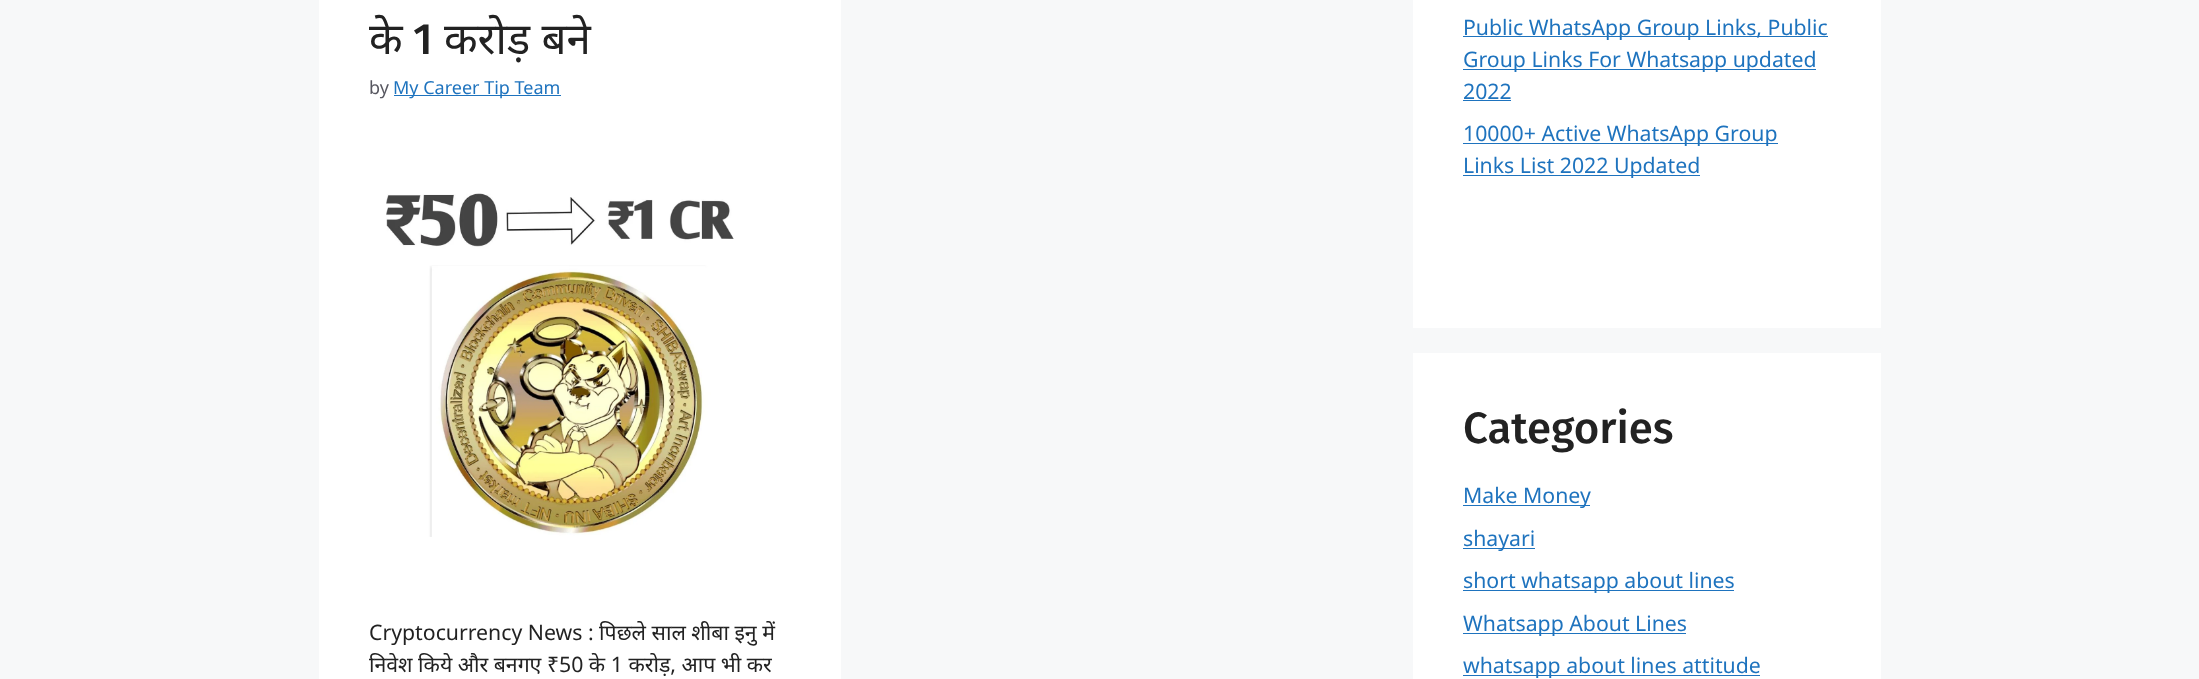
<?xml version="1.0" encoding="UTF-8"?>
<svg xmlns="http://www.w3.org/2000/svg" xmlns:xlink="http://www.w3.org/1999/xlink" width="2199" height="679">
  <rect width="100%" height="100%" fill="#f7f8f9" />
  <rect x="319" width="522" height="679" fill="#ffffff" />
  <rect x="394" y="95" width="167" height="1" fill="#1e73be" />
  <image x="386" y="193" width="348" height="344" xlink:href="image1.png" />
  <rect x="1413" width="468" height="328" fill="#ffffff" />
  <rect x="1463" y="36" width="365" height="1" fill="#1e73be" />
  <rect x="1463" y="69" width="353" height="1" fill="#1e73be" />
  <rect x="1463" y="100" width="48" height="1" fill="#1e73be" />
  <rect x="1463" y="143" width="315" height="1" fill="#1e73be" />
  <rect x="1463" y="175" width="237" height="1" fill="#1e73be" />
  <rect x="1413" y="353" width="468" height="326" fill="#ffffff" />
  <rect x="1463" y="505" width="127" height="1" fill="#1e73be" />
  <rect x="1463" y="548" width="72" height="1" fill="#1e73be" />
  <rect x="1463" y="590" width="271" height="1" fill="#1e73be" />
  <rect x="1463" y="633" width="223" height="1" fill="#1e73be" />
  <rect x="1463" y="675" width="297" height="1" fill="#1e73be" />
  <text x="369" y="54" style="font-family: Noto Sans; font-size: 43.75px; fill: #222222">के</text>
  <text x="413" y="54" style="font-family: Fira Sans; font-size: 43.75px; font-weight: 500; fill: #222222">1</text>
  <text x="444" y="54" style="font-family: Noto Sans; font-size: 43.75px; fill: #222222">करोड़ बने</text>
  <text x="369" y="94" style="font-family: Noto Sans; font-size: 18px; fill: #575760">by</text>
  <text x="393" y="94" style="font-family: Noto Sans; font-size: 18px; fill: #1e73be">My Career Tip Team</text>
  <text x="369" y="640" style="font-family: Noto Sans; font-size: 21.25px; fill: #222222">Cryptocurrency News : पिछले साल शीबा इनु में</text>
  <text x="369" y="672" style="font-family: Noto Sans; font-size: 21.25px; fill: #222222">निवेश किये और बनगए ₹50 के 1 करोड़, आप भी कर</text>
  <text x="1463" y="35" style="font-family: Noto Sans; font-size: 21.25px; fill: #1e73be">Public WhatsApp Group Links, Public</text>
  <text x="1463" y="67" style="font-family: Noto Sans; font-size: 21.25px; fill: #1e73be">Group Links For Whatsapp updated</text>
  <text x="1463" y="99" style="font-family: Noto Sans; font-size: 21.25px; fill: #1e73be">2022</text>
  <text x="1463" y="141" style="font-family: Noto Sans; font-size: 21.25px; fill: #1e73be">10000+ Active WhatsApp Group</text>
  <text x="1463" y="173" style="font-family: Noto Sans; font-size: 21.25px; fill: #1e73be">Links List 2022 Updated</text>
  <text x="1463" y="443" style="font-family: Fira Sans; font-size: 43.75px; font-weight: 500; fill: #222222">Categories</text>
  <text x="1463" y="503" style="font-family: Noto Sans; font-size: 21.25px; fill: #1e73be">Make Money</text>
  <text x="1463" y="546" style="font-family: Noto Sans; font-size: 21.25px; fill: #1e73be">shayari</text>
  <text x="1463" y="588" style="font-family: Noto Sans; font-size: 21.25px; fill: #1e73be">short whatsapp about lines</text>
  <text x="1463" y="631" style="font-family: Noto Sans; font-size: 21.25px; fill: #1e73be">Whatsapp About Lines</text>
  <text x="1463" y="673" style="font-family: Noto Sans; font-size: 21.25px; fill: #1e73be">whatsapp about lines attitude</text>
</svg>
